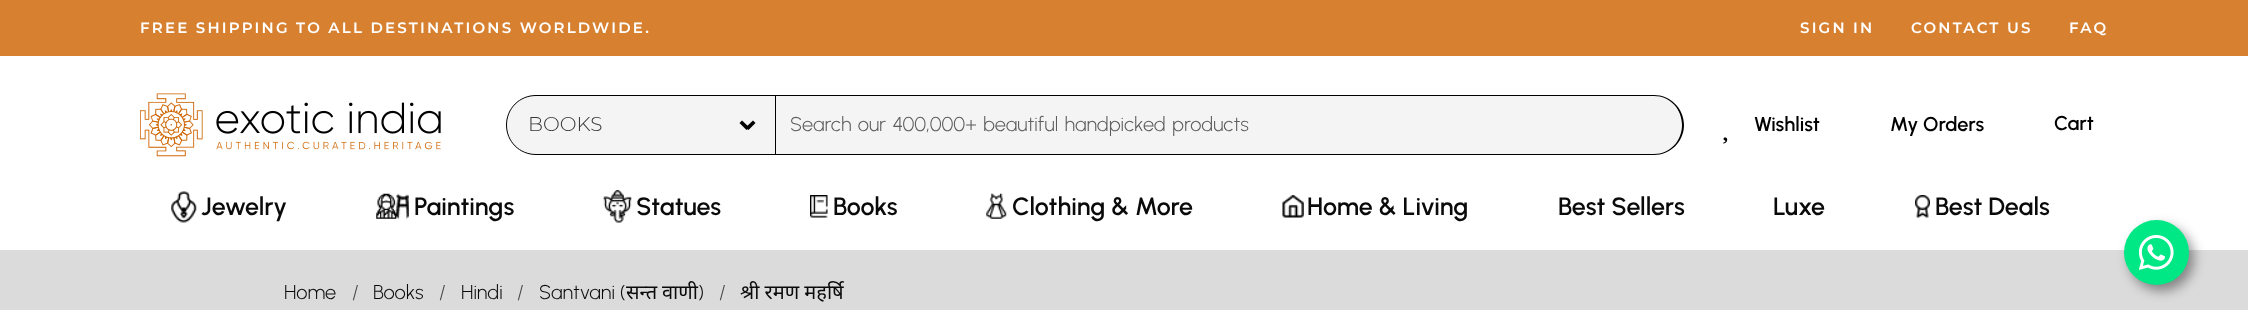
<?xml version="1.0" encoding="UTF-8"?>
<svg xmlns="http://www.w3.org/2000/svg" xmlns:xlink="http://www.w3.org/1999/xlink" width="2248" height="310">
  <rect width="100%" height="100%" fill="#ffffff" />
  <rect width="2248" height="56" fill="#d78030" />
  <image x="140" y="93" width="301" height="64" xlink:href="image1.png" />
  <path d="M 536 95.5 h 239.5 v 59 h -239.5 c -16.5 0 -29.5 -13 -29.5 -29.5 c 0 -16.5 13 -29.5 29.5 -29.5 z" fill="#f4f4f4" stroke="#000000" />
  <path d="M 745.5 127.5 l 7.5 -7 l 2.5 2.5 l -7 7 z" fill="#000000" />
  <path d="M 739.5 123 l 2.5 -2.5 l 7.5 7 l -3 2.5 z" fill="#000000" />
  <rect x="775.5" y="95.5" width="828" height="59" fill="#f4f4f4" stroke="#000000" />
  <path d="M 1603 96 h 51 c 16 0 29 13 29 29 c 0 16 -13 29 -29 29 h -51 z" fill="#f4f4f4" />
  <path d="M 1602 95 h 52 c 16 0 30 13 30 30 c 0 17 -14 30 -30 30 h -52 z m 0 1 h 52 c 16 0 28 13 28 29 c 0 16 -12 29 -28 29 h -52 z" fill="#000000" fill-rule="evenodd" />
  <image x="1723" y="137" width="5" height="7" xlink:href="image2.png" />
  <image x="171" y="191" width="26" height="32" xlink:href="image3.png" />
  <image x="376" y="193" width="33" height="26" xlink:href="image4.png" />
  <image x="603" y="190" width="29" height="33" xlink:href="image5.png" />
  <image x="810" y="195" width="18" height="23" xlink:href="image6.png" />
  <image x="986" y="193" width="21" height="26" xlink:href="image7.png" />
  <image x="1282" y="195" width="22" height="23" xlink:href="image8.png" />
  <image x="1915" y="195" width="15" height="23" xlink:href="image9.png" />
  <rect y="250" width="2248" height="60" fill="#dbdbdb" />
  <rect x="2129" y="226" width="65" height="65" rx="32.5" fill="#000000" fill-opacity="0.4" filter="blur(6px)" />
  <circle cx="2156.5" cy="252.5" r="32.5" fill="#00e785" />
  <image x="2139" y="235" width="35" height="35" xlink:href="image10.png" />
  <text x="140" y="33" style="font-family: Montserrat; font-size: 15px; font-weight: 600; letter-spacing: 2.2px; fill: #ffffff">FREE SHIPPING TO ALL DESTINATIONS WORLDWIDE.</text>
  <text x="1800" y="33" style="font-family: Montserrat; font-size: 15px; font-weight: 600; letter-spacing: 2.2px; fill: #ffffff">SIGN IN</text>
  <text x="1911" y="33" style="font-family: Montserrat; font-size: 15px; font-weight: 600; letter-spacing: 2.2px; fill: #ffffff">CONTACT US</text>
  <text x="2069" y="33" style="font-family: Montserrat; font-size: 15px; font-weight: 600; letter-spacing: 2.2px; fill: #ffffff">FAQ</text>
  <text x="528" y="131" style="font-family: Montserrat; font-size: 20px; font-weight: 300; fill: #363636">BOOKS</text>
  <text x="790" y="131" word-spacing="1.5" style="font-family: Urbanist; font-size: 20px; font-weight: 300; fill: #5c5c5c">Search our 400,000+ beautiful handpicked products</text>
  <text x="1754" y="131" style="font-family: Urbanist; font-size: 20px; font-weight: 600; fill: #000000">Wishlist</text>
  <text x="1890" y="131" style="font-family: Urbanist; font-size: 20px; font-weight: 600; fill: #000000">My Orders</text>
  <text x="2054" y="130" style="font-family: Urbanist; font-size: 20px; font-weight: 600; fill: #000000">Cart</text>
  <text x="201" y="215" style="font-family: Urbanist; font-size: 25px; font-weight: 600; fill: #0a0a0a">Jewelry</text>
  <text x="414" y="215" style="font-family: Urbanist; font-size: 25px; font-weight: 600; fill: #0a0a0a">Paintings</text>
  <text x="636" y="215" style="font-family: Urbanist; font-size: 25px; font-weight: 600; fill: #0a0a0a">Statues</text>
  <text x="833" y="215" style="font-family: Urbanist; font-size: 25px; font-weight: 600; fill: #0a0a0a">Books</text>
  <text x="1012" y="215" style="font-family: Urbanist; font-size: 25px; font-weight: 600; fill: #0a0a0a">Clothing &amp; More</text>
  <text x="1307" y="215" style="font-family: Urbanist; font-size: 25px; font-weight: 600; fill: #0a0a0a">Home &amp; Living</text>
  <text x="1558" y="215" style="font-family: Urbanist; font-size: 25px; font-weight: 600; fill: #0a0a0a">Best Sellers</text>
  <text x="1773" y="215" style="font-family: Urbanist; font-size: 25px; font-weight: 600; fill: #0a0a0a">Luxe</text>
  <text x="1935" y="215" style="font-family: Urbanist; font-size: 25px; font-weight: 600; fill: #0a0a0a">Best Deals</text>
  <text x="284" y="299" style="font-family: Urbanist; font-size: 20px; font-weight: 300; fill: #0a0a0a">Home</text>
  <text x="352" y="299" style="font-family: Urbanist; font-size: 20px; font-weight: 300; fill: #474747">/</text>
  <text x="373" y="299" style="font-family: Urbanist; font-size: 20px; font-weight: 300; fill: #0a0a0a">Books</text>
  <text x="439" y="299" style="font-family: Urbanist; font-size: 20px; font-weight: 300; fill: #474747">/</text>
  <text x="461" y="299" style="font-family: Urbanist; font-size: 20px; font-weight: 300; fill: #0a0a0a">Hindi</text>
  <text x="517" y="299" style="font-family: Urbanist; font-size: 20px; font-weight: 300; fill: #474747">/</text>
  <text x="539" y="299" style="font-family: Urbanist; font-size: 20px; font-weight: 300; fill: #0a0a0a">Santvani (</text>
  <text x="626" y="299" style="font-family: Noto Sans; font-size: 20px; fill: #0a0a0a">सन्त</text>
  <text x="662" y="299" style="font-family: Noto Sans; font-size: 20px; fill: #0a0a0a">वाणी</text>
  <text x="698" y="299" style="font-family: Urbanist; font-size: 20px; font-weight: 300; fill: #0a0a0a">)</text>
  <text x="719" y="299" style="font-family: Urbanist; font-size: 20px; font-weight: 300; fill: #474747">/</text>
  <text x="740" y="299" style="font-family: Noto Sans; font-size: 20px; fill: #0a0a0a">श्री रमण महर्षि</text>
</svg>
